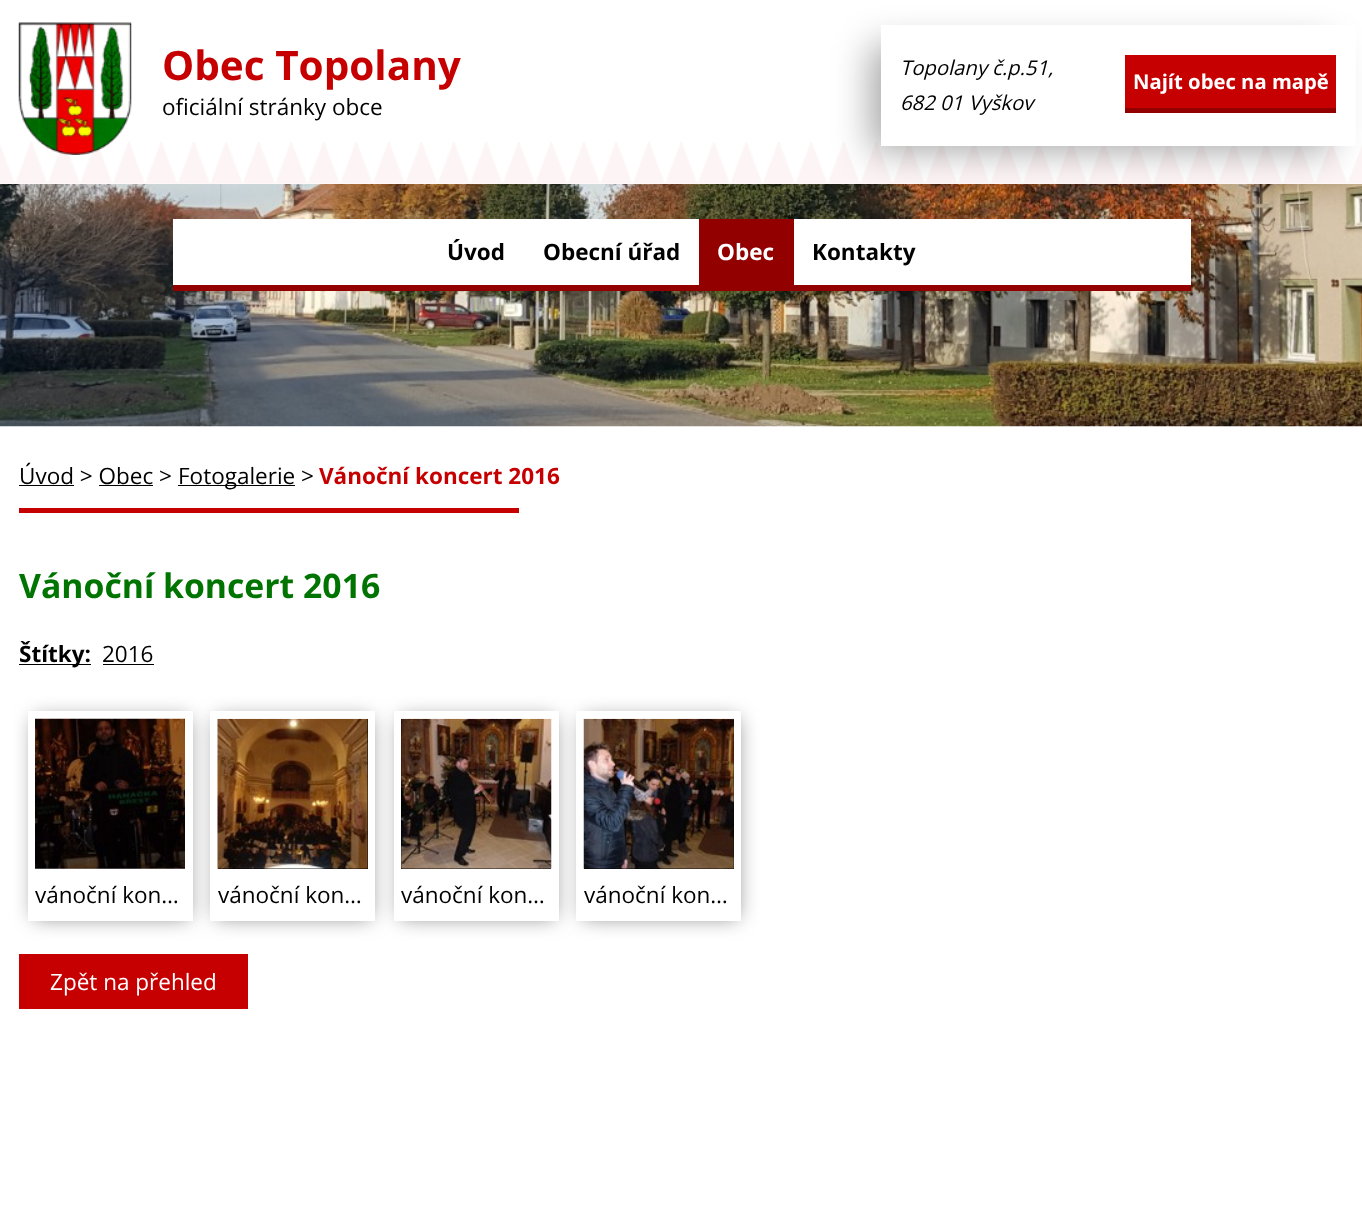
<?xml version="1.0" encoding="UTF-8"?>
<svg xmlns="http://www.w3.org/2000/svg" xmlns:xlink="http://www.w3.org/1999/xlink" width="1362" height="1208">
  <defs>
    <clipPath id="clip1"><path d="M 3 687 h 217 v 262 h -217 z m 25 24 h 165 v 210 h -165 z" clip-rule="evenodd" /></clipPath>
    <clipPath id="clip2"><path d="M 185 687 h 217 v 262 h -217 z m 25 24 h 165 v 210 h -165 z" clip-rule="evenodd" /></clipPath>
    <clipPath id="clip3"><path d="M 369 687 h 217 v 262 h -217 z m 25 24 h 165 v 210 h -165 z" clip-rule="evenodd" /></clipPath>
    <clipPath id="clip4"><path d="M 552 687 h 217 v 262 h -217 z m 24 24 h 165 v 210 h -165 z" clip-rule="evenodd" /></clipPath>
  </defs>
  <rect width="100%" height="100%" fill="#ffffff" />
  <image x="0" y="184" width="1362" height="243" xlink:href="image1.png" />
  <image x="0" y="142" width="1362" height="42" xlink:href="image3.png" />
  <image x="18" y="22" width="114" height="133" xlink:href="image2.png" />
  <rect x="871" y="45" width="460" height="106" fill="#000000" fill-opacity="0.35" filter="blur(18px)" />
  <rect x="881" y="25" width="475" height="121" fill="#ffffff" />
  <rect x="1125" y="55" width="211" height="53" fill="#c60000" />
  <rect x="1125" y="108" width="211" height="5" fill="#930000" />
  <rect x="173" y="219" width="1018" height="66" fill="#ffffff" />
  <rect x="173" y="285" width="1018" height="6" fill="#930000" />
  <rect x="699" y="219" width="95" height="66" fill="#930000" />
  <rect x="19" y="485" width="55" height="1" fill="#000000" />
  <rect x="178" y="485" width="117" height="1" fill="#000000" />
  <rect x="99" y="485" width="54" height="1" fill="#000000" />
  <rect x="19" y="508" width="500" height="5" fill="#c60000" />
  <rect x="19" y="664" width="72" height="1" fill="#000000" />
  <rect x="103" y="664" width="51" height="1" fill="#000000" />
  <g clip-path="url(#clip1)">
    <rect x="34" y="718" width="155" height="200" fill="#888888" filter="blur(10px)" />
  </g>
  <image x="35" y="718" width="150" height="151" xlink:href="image4.png" />
  <g clip-path="url(#clip2)">
    <rect x="216" y="718" width="155" height="200" fill="#888888" filter="blur(10px)" />
  </g>
  <rect x="218" y="719" width="150" height="150" fill="#000000" />
  <image x="217" y="718" width="151" height="151" xlink:href="image5.png" />
  <g clip-path="url(#clip3)">
    <rect x="400" y="718" width="155" height="200" fill="#888888" filter="blur(10px)" />
  </g>
  <rect x="401" y="719" width="150" height="150" fill="#000000" />
  <image x="401" y="718" width="151" height="151" xlink:href="image6.png" />
  <g clip-path="url(#clip4)">
    <rect x="583" y="718" width="155" height="200" fill="#888888" filter="blur(10px)" />
  </g>
  <rect x="584" y="719" width="150" height="150" fill="#000000" />
  <image x="583" y="718" width="151" height="151" xlink:href="image7.png" />
  <rect x="19" y="954" width="229" height="55" fill="#c60000" />
  <text x="162" y="80" style="font-family: Open Sans; font-size: 40.5px; font-weight: bold; fill: #c60000">Obec Topolany</text>
  <text x="162" y="115" style="font-family: Open Sans; font-size: 22.5px; fill: #000000">oficiální stránky obce</text>
  <text x="900" y="75" style="font-family: Open Sans; font-size: 20.25px; font-style: italic; fill: #000000">Topolany č.p.51,</text>
  <text x="900" y="110" style="font-family: Open Sans; font-size: 20.25px; font-style: italic; fill: #000000">682 01 Vyškov</text>
  <text x="1133" y="89" style="font-family: Open Sans; font-size: 20.25px; font-weight: bold; fill: #ffffff">Najít obec na mapě</text>
  <text x="447" y="260" style="font-family: Open Sans; font-size: 22.5px; font-weight: bold; fill: #000000">Úvod</text>
  <text x="543" y="260" style="font-family: Open Sans; font-size: 22.5px; font-weight: bold; fill: #000000">Obecní úřad</text>
  <text x="717" y="260" style="font-family: Open Sans; font-size: 22.5px; font-weight: bold; fill: #ffffff">Obec</text>
  <text x="812" y="260" style="font-family: Open Sans; font-size: 22.5px; font-weight: bold; fill: #000000">Kontakty</text>
  <text x="19" y="484" style="font-family: Open Sans; font-size: 22.5px; fill: #000000">Úvod &gt; Obec &gt;</text>
  <text x="178" y="484" style="font-family: Open Sans; font-size: 22.5px; fill: #000000">Fotogalerie &gt;</text>
  <text x="319" y="484" style="font-family: Open Sans; font-size: 22.5px; font-weight: bold; fill: #c60000">Vánoční koncert 2016</text>
  <text x="19" y="598" style="font-family: Open Sans; font-size: 33.75px; font-weight: bold; fill: #007401">Vánoční koncert 2016</text>
  <text x="19" y="662" style="font-family: Open Sans; font-size: 22.5px; font-weight: bold; fill: #000000">Štítky:</text>
  <text x="102" y="662" style="font-family: Open Sans; font-size: 22.5px; fill: #000000">2016</text>
  <text x="35" y="903" style="font-family: Open Sans; font-size: 22.5px; fill: #000000">vánoční kon…</text>
  <text x="218" y="903" style="font-family: Open Sans; font-size: 22.5px; fill: #000000">vánoční kon…</text>
  <text x="401" y="903" style="font-family: Open Sans; font-size: 22.5px; fill: #000000">vánoční kon…</text>
  <text x="584" y="903" style="font-family: Open Sans; font-size: 22.5px; fill: #000000">vánoční kon…</text>
  <text x="50" y="990" style="font-family: Open Sans; font-size: 22.5px; fill: #ffffff">Zpět na přehled</text>
</svg>
